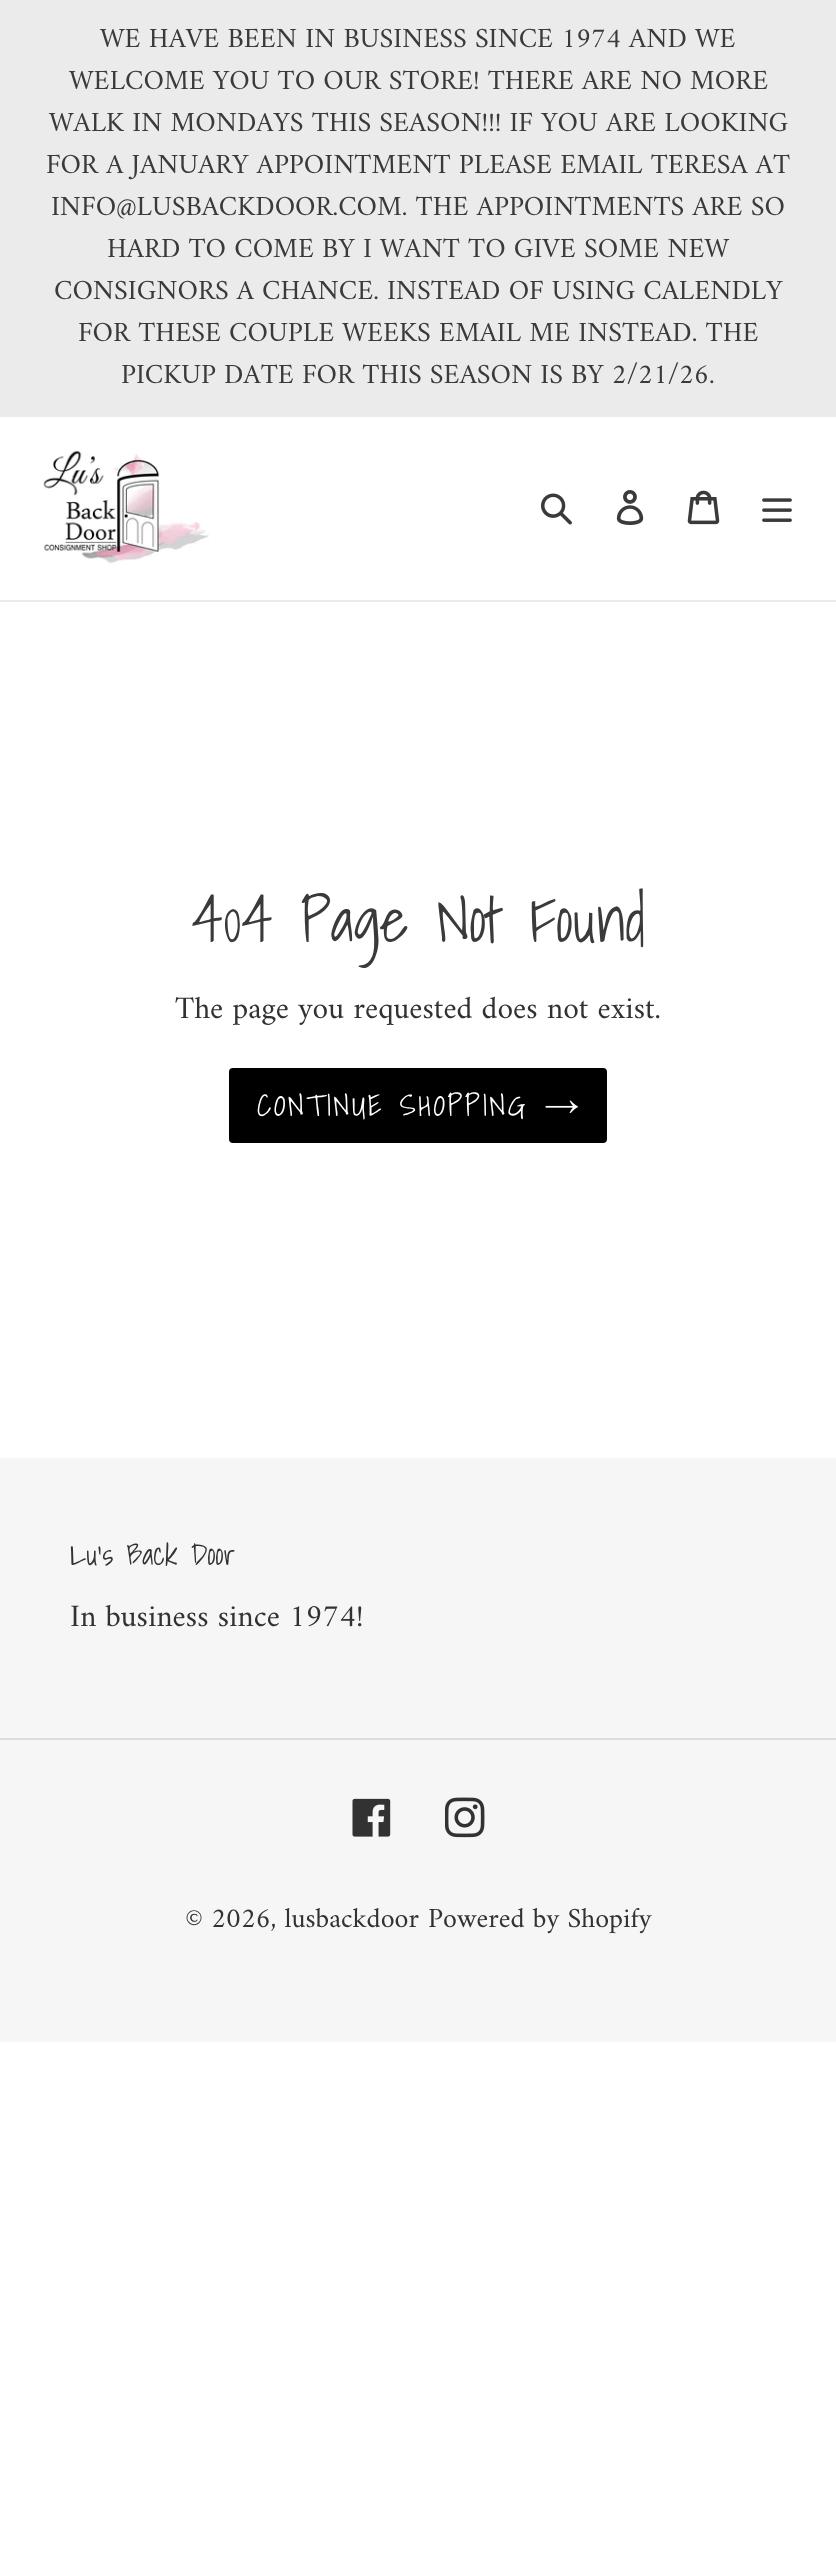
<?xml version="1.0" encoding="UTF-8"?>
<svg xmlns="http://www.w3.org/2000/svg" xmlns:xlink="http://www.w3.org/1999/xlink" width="836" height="2559">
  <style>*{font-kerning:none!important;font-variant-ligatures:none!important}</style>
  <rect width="100%" height="100%" fill="#ffffff" />
  <rect width="836" height="417" fill="#ebebeb" />
  <rect y="600" width="836" height="2" fill="#ebebeb" />
  <image x="43" y="450" width="166" height="114" xlink:href="image1.png" />
  <image x="541" y="493" width="31" height="32" xlink:href="image2.png" />
  <image x="616" y="490" width="28" height="35" xlink:href="image3.png" />
  <image x="687" y="490" width="33" height="35" xlink:href="image4.png" />
  <image x="762" y="498" width="30" height="24" xlink:href="image5.png" />
  <rect x="229" y="1068" width="378" height="75" rx="4" fill="#000000" />
  <image x="545" y="1100" width="33" height="13" xlink:href="image6.png" />
  <rect y="1458" width="836" height="584" fill="#f6f6f6" />
  <rect y="1738" width="836" height="2" fill="#dddddd" />
  <image x="352" y="1798" width="39" height="39" xlink:href="image7.png" />
  <image x="445" y="1797" width="40" height="41" xlink:href="image8.png" />
  <text x="100" y="47" style="font-family: Amiri; font-size: 28px; fill: #3a3a3a">WE HAVE BEEN IN BUSINESS SINCE 1974 AND WE</text>
  <text x="69" y="89" style="font-family: Amiri; font-size: 28px; fill: #3a3a3a">WELCOME YOU TO OUR STORE! THERE ARE NO MORE</text>
  <text x="49" y="131" style="font-family: Amiri; font-size: 28px; fill: #3a3a3a">WALK IN MONDAYS THIS SEASON!!! IF YOU</text>
  <text x="606" y="131" style="font-family: Amiri; font-size: 28px; fill: #3a3a3a">ARE LOOKING</text>
  <text x="46" y="173" style="font-family: Amiri; font-size: 28px; fill: #3a3a3a">FOR A JANUARY APPOINTMENT PLEASE EMAIL TERESA AT</text>
  <text x="51" y="215" style="font-family: Amiri; font-size: 28px; fill: #3a3a3a">INFO@LUSBACKDOOR.COM. THE APPOINTMENTS ARE SO</text>
  <text x="107" y="257" style="font-family: Amiri; font-size: 28px; fill: #3a3a3a">HARD TO COME BY I WANT TO GIVE SOME NEW</text>
  <text x="54" y="299" style="font-family: Amiri; font-size: 28px; fill: #3a3a3a">CONSIGNORS A CHANCE. INSTEAD OF USING CALENDLY</text>
  <text x="78" y="341" style="font-family: Amiri; font-size: 28px; fill: #3a3a3a">FOR THESE COUPLE WEEKS EMAIL ME INSTEAD. THE</text>
  <text x="121" y="383" style="font-family: Amiri; font-size: 28px; fill: #3a3a3a">PICKUP DATE FOR THIS SEASON IS BY 2/21/26.</text>
  <text x="192" y="942" style="font-family: Shadows Into Light; font-size: 61.25px; fill: #3a3a3a">404 Page Not Found</text>
  <text x="175" y="1018" style="font-family: Amiri; font-size: 31.5px; fill: #333232">The page you requested does not exist.</text>
  <text x="257" y="1116" style="font-family: Shadows Into Light; font-size: 29.75px; letter-spacing: 2.4px; fill: #ffffff">CONTINUE SHOPPING</text>
  <text x="70" y="1565" style="font-family: Shadows Into Light; font-size: 29.75px; fill: #333232">Lu's Back Door</text>
  <text x="70" y="1626" style="font-family: Amiri; font-size: 31.5px; fill: #333232">In business since 1974!</text>
  <text x="185" y="1927" style="font-family: Amiri; font-size: 28px; fill: #333232">© 2026, lusbackdoor</text>
  <text x="428" y="1927" style="font-family: Amiri; font-size: 28px; fill: #333232">Powered by Shopify</text>
</svg>
